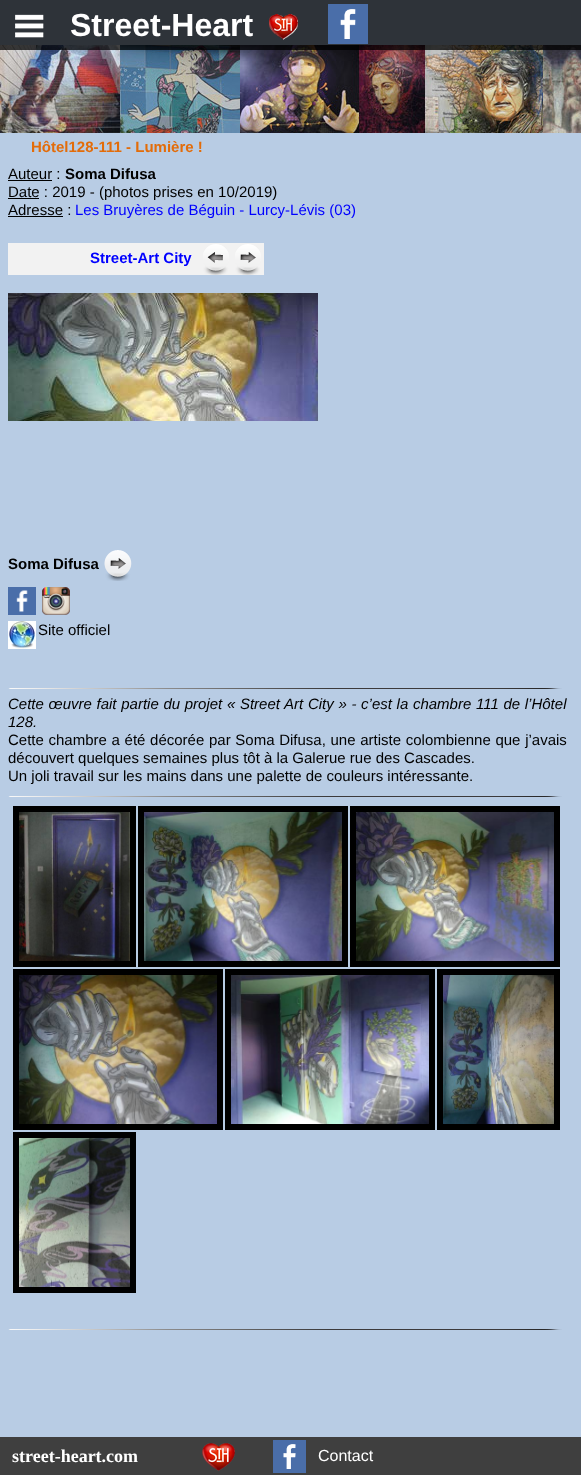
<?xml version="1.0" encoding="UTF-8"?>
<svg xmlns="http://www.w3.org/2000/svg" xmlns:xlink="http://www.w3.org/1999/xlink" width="581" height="1475">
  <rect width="100%" height="100%" fill="#b8cce4" />
  <image x="0" y="45" width="581" height="88" xlink:href="image4.png" />
  <rect width="581" height="50" fill="#000000" fill-opacity="0.75" />
  <image x="15" y="14" width="29" height="24" xlink:href="image1.png" />
  <image x="269" y="14" width="29" height="26" xlink:href="image2.png" />
  <image x="328" y="4" width="40" height="40" xlink:href="image3.png" />
  <rect x="8" y="180" width="44" height="1" fill="#000000" />
  <rect x="8" y="198" width="31" height="1" fill="#000000" />
  <rect x="8" y="216" width="55" height="1" fill="#000000" />
  <rect x="8" y="243" width="256" height="32" fill="#f2f2f2" />
  <image x="203" y="244" width="26" height="31" xlink:href="image5.png" />
  <image x="235" y="244" width="26" height="31" xlink:href="image6.png" />
  <image x="8" y="293" width="310" height="128" xlink:href="image7.png" />
  <image x="104" y="550" width="28" height="31" xlink:href="image8.png" />
  <image x="8" y="587" width="28" height="28" xlink:href="image9.png" />
  <image x="42" y="587" width="28" height="28" xlink:href="image10.png" />
  <image x="8" y="621" width="28" height="28" xlink:href="image11.png" />
  <image x="8" y="688" width="319" height="1" xlink:href="image12.png" />
  <rect x="327" y="688" width="171" height="1" fill="#3c3a3c" />
  <image x="498" y="688" width="64" height="1" xlink:href="image13.png" />
  <image x="8" y="796" width="319" height="1" xlink:href="image12.png" />
  <rect x="327" y="796" width="171" height="1" fill="#3c3a3c" />
  <image x="498" y="796" width="64" height="1" xlink:href="image13.png" />
  <rect x="13" y="806" width="123" height="161" fill="#000000" />
  <image x="19" y="812" width="111" height="149" xlink:href="image14.png" />
  <image x="19" y="813" width="111" height="146" xlink:href="image15.png" />
  <rect x="138" y="806" width="210" height="161" fill="#000000" />
  <image x="144" y="812" width="5" height="149" xlink:href="image16.png" />
  <image x="149" y="812" width="193" height="149" xlink:href="image17.png" />
  <rect x="350" y="806" width="210" height="161" fill="#000000" />
  <image x="356" y="812" width="198" height="149" xlink:href="image18.png" />
  <image x="356" y="819" width="194" height="140" xlink:href="image19.png" />
  <rect x="13" y="969" width="210" height="161" fill="#000000" />
  <image x="19" y="975" width="198" height="149" xlink:href="image20.png" />
  <image x="24" y="975" width="188" height="149" xlink:href="image21.png" />
  <rect x="225" y="969" width="210" height="161" fill="#000000" />
  <image x="231" y="975" width="198" height="149" xlink:href="image22.png" />
  <image x="250" y="975" width="171" height="149" xlink:href="image23.png" />
  <rect x="437" y="969" width="123" height="161" fill="#000000" />
  <image x="443" y="975" width="7" height="149" xlink:href="image24.png" />
  <image x="450" y="975" width="104" height="149" xlink:href="image25.png" />
  <rect x="13" y="1132" width="123" height="161" fill="#000000" />
  <image x="19" y="1138" width="111" height="149" xlink:href="image26.png" />
  <image x="8" y="1329" width="319" height="1" xlink:href="image12.png" />
  <rect x="327" y="1329" width="171" height="1" fill="#3c3a3c" />
  <image x="498" y="1329" width="64" height="1" xlink:href="image13.png" />
  <rect y="1437" width="581" height="38" fill="#3f3f3f" />
  <image x="202" y="1443" width="33" height="28" xlink:href="image27.png" />
  <image x="273" y="1440" width="33" height="33" xlink:href="image28.png" />
  <text x="70" y="36" style="font-family: Liberation Sans; font-size: 32px; font-weight: bold; fill: #ffffff">Street-Heart</text>
  <text x="31" y="152" style="font-family: Liberation Sans; font-size: 15px; font-weight: bold; fill: #e36c09">Hôtel128-111 - Lumière !</text>
  <text x="8" y="179" style="font-family: Liberation Sans; font-size: 15px; fill: #000000">Auteur :</text>
  <text x="65" y="179" style="font-family: Liberation Sans; font-size: 15px; font-weight: bold; fill: #000000">Soma Difusa</text>
  <text x="8" y="197" style="font-family: Liberation Sans; font-size: 15px; fill: #000000">Date : 2019 - (photos prises en 10/2019)</text>
  <text x="8" y="215" style="font-family: Liberation Sans; font-size: 15px; fill: #000000">Adresse :</text>
  <text x="75" y="215" style="font-family: Liberation Sans; font-size: 15px; fill: #0000ff">Les Bruyères de Béguin - Lurcy-Lévis (03)</text>
  <text x="90" y="263" style="font-family: Liberation Sans; font-size: 15px; font-weight: bold; fill: #0000ff">Street-Art City</text>
  <text x="8" y="569" style="font-family: Liberation Sans; font-size: 15px; font-weight: bold; fill: #000000">Soma Difusa</text>
  <text x="38" y="635" style="font-family: Liberation Sans; font-size: 15px; fill: #000000">Site officiel</text>
  <text x="8" y="709" word-spacing="0.5" style="font-family: Liberation Sans; font-size: 15px; font-style: italic; fill: #000000">Cette œuvre fait partie du projet « Street Art City » - c’est la chambre 111 de l’Hôtel</text>
  <text x="8" y="727" style="font-family: Liberation Sans; font-size: 15px; font-style: italic; fill: #000000">128.</text>
  <text x="8" y="745" word-spacing="0.5" style="font-family: Liberation Sans; font-size: 15px; fill: #000000">Cette chambre a été décorée par Soma Difusa, une artiste colombienne que j’avais</text>
  <text x="8" y="763" style="font-family: Liberation Sans; font-size: 15px; fill: #000000">découvert quelques semaines plus tôt à la Galerue rue des Cascades.</text>
  <text x="8" y="781" style="font-family: Liberation Sans; font-size: 15px; fill: #000000">Un joli travail sur les mains dans une palette de couleurs intéressante.</text>
  <text x="12" y="1462" style="font-family: Liberation Serif; font-size: 18px; font-weight: bold; fill: #ffffff">street-heart.com</text>
  <text x="318" y="1461" style="font-family: Liberation Sans; font-size: 16px; fill: #ffffff">Contact</text>
</svg>
